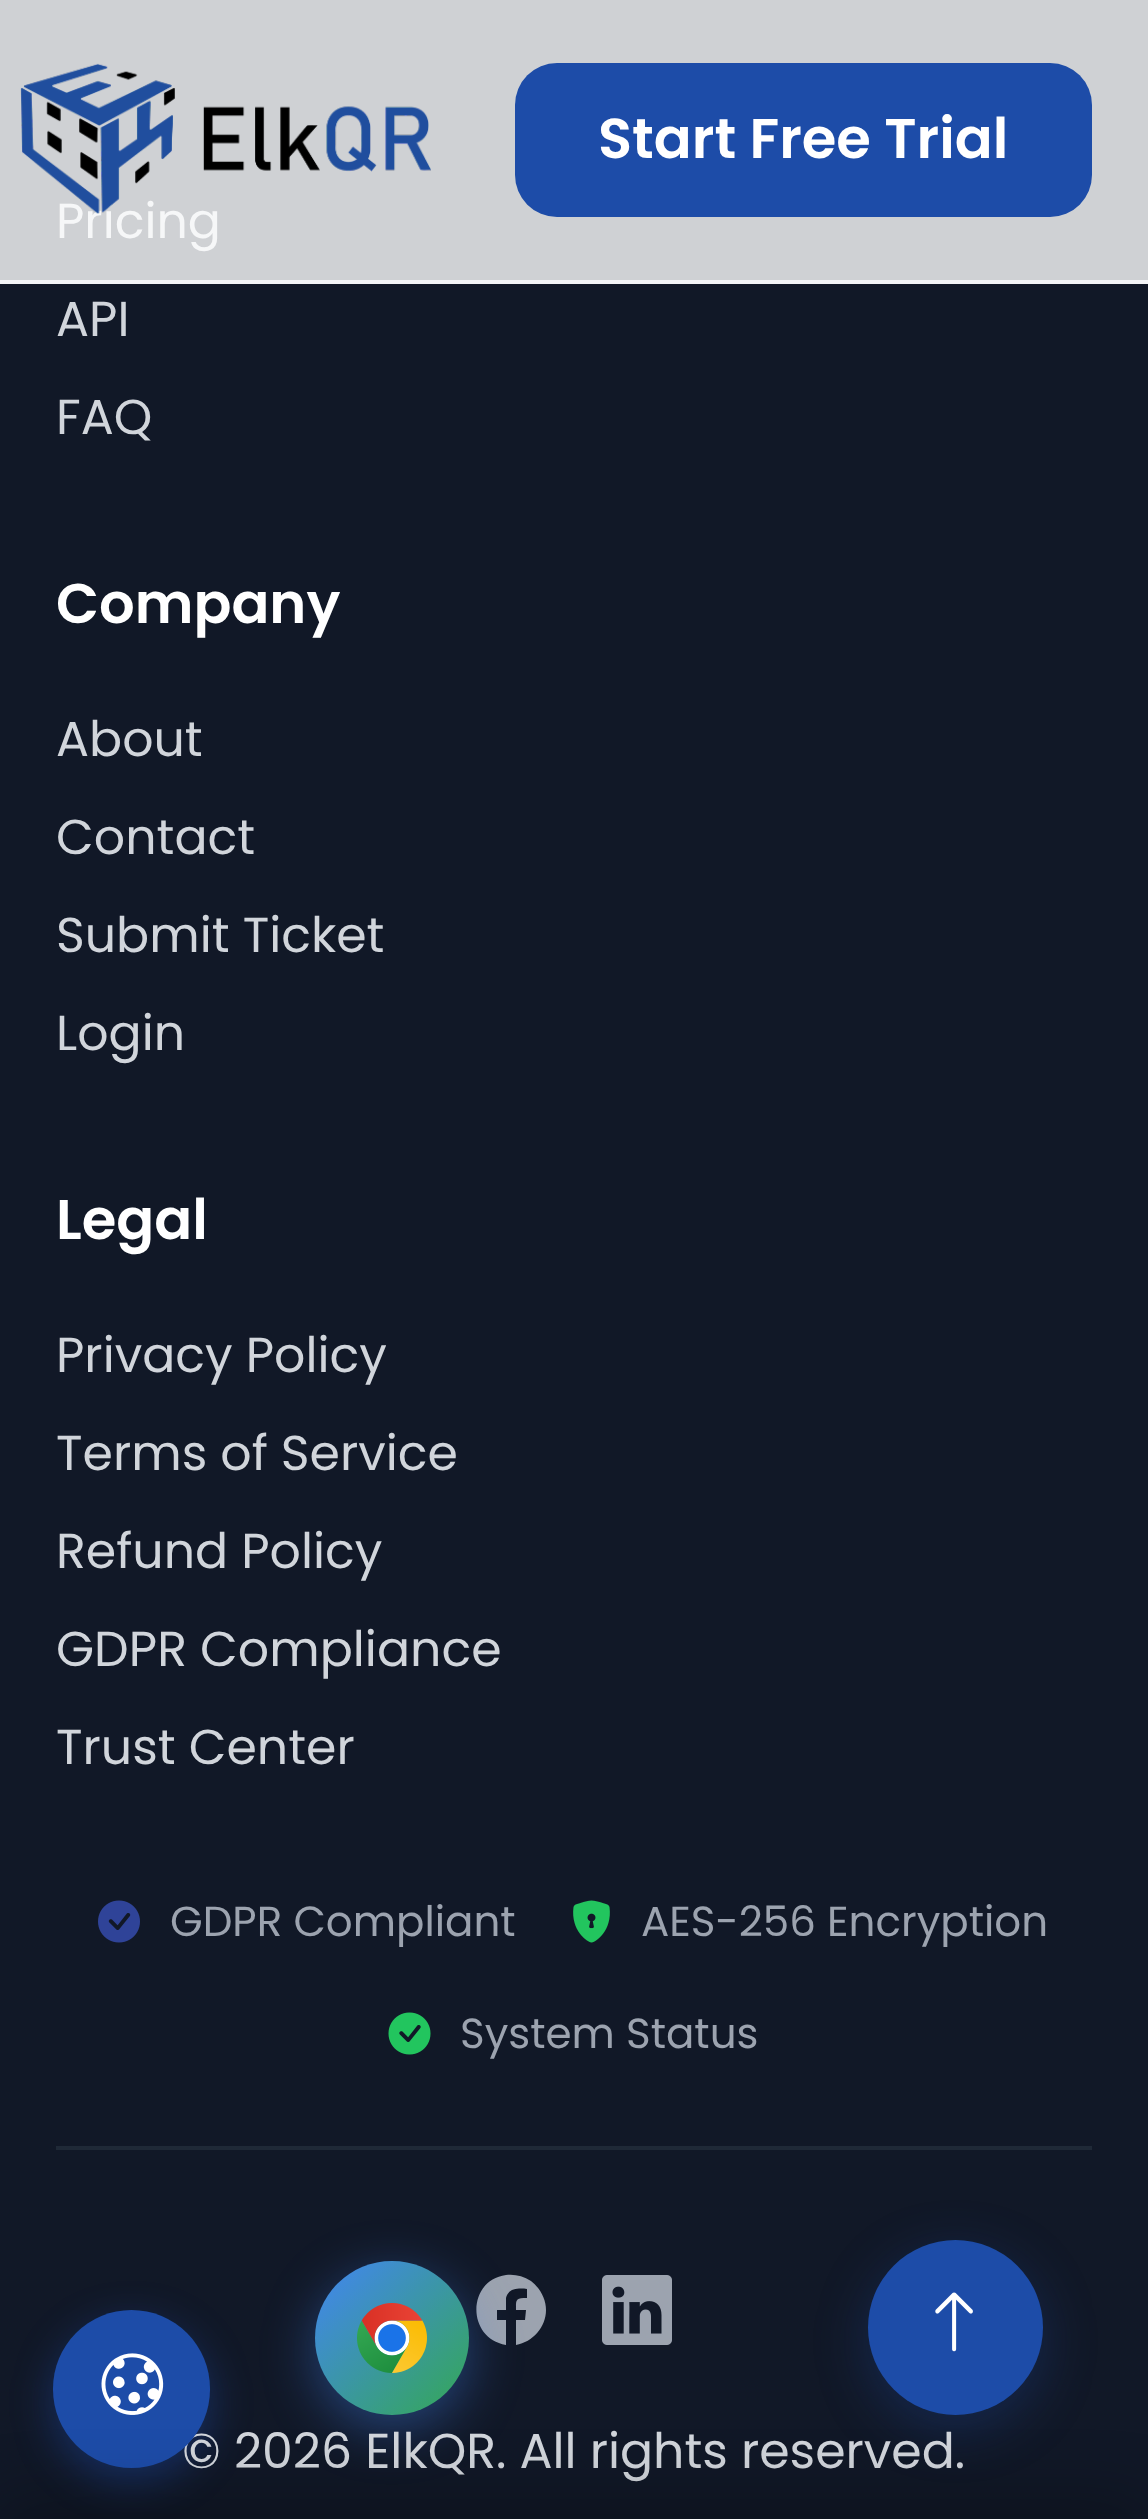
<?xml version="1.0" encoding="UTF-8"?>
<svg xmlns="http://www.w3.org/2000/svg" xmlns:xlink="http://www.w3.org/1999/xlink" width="1148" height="2519">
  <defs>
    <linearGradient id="g1" gradientUnits="userSpaceOnUse" x1="315" y1="2261" x2="469" y2="2415"><stop offset="0" stop-color="#4285f4" /><stop offset="1" stop-color="#34a853" /></linearGradient>
  </defs>
  <rect width="100%" height="100%" fill="#111827" />
  <rect y="280" width="1148" height="4" fill="#f3f4f6" />
  <rect width="1148" height="280" fill="#cfd1d4" />
  <rect x="515" y="63" width="577" height="154" rx="42" fill="#1d4ca8" />
  <image x="98" y="1900" width="42" height="43" xlink:href="image2.png" />
  <image x="573" y="1900" width="37" height="43" xlink:href="image3.png" />
  <image x="388" y="2012" width="43" height="43" xlink:href="image4.png" />
  <rect x="56" y="2146" width="1036" height="4" fill="#1f2937" />
  <path d="M 546 2310 c 0 -11 -6 -22 -15 -29 c -8 -5 -16 -7 -25 -6 c -39 5 -40 63 0 70 v -25 h -9 v -10 h 9 v -12 c 2 -10 13 -10 21 -9 v 9 c -12 0 -11 2 -11 12 h 10 l -1 10 h -9 v 25 c 17 -3 30 -18 30 -35 z" fill="#9ca3af" />
  <image x="602" y="2275" width="70" height="70" xlink:href="image5.png" />
  <rect x="53" y="2324" width="157" height="158" rx="78.5" fill="#2563eb" fill-opacity="0.3" filter="blur(21px)" />
  <rect x="315" y="2275" width="154" height="154" rx="77" fill="#4285f4" fill-opacity="0.4" filter="blur(26px)" />
  <circle cx="392" cy="2338" r="77" fill="url(#g1)" />
  <image x="357" y="2303" width="70" height="70" xlink:href="image7.png" />
  <rect x="868" y="2254" width="175" height="175" rx="87.5" fill="#1d4ca8" fill-opacity="0.3" filter="blur(26px)" />
  <circle cx="955.5" cy="2327.5" r="87.5" fill="#1d4ca8" />
  <image x="935" y="2292" width="38" height="60" xlink:href="image8.png" />
  <text x="598" y="158" style="font-family: Poppins; font-size: 56px; font-weight: 600; fill: #ffffff">Start Free Trial</text>
  <text x="56" y="238" style="font-family: Poppins; font-size: 49px; fill: #f6f7f8">Pricing</text>
  <image x="20" y="63" width="411" height="151" xlink:href="image1.png" />
  <text x="56" y="336" style="font-family: Poppins; font-size: 49px; fill: #d1d5db">API</text>
  <text x="56" y="434" style="font-family: Poppins; font-size: 49px; fill: #d1d5db">FAQ</text>
  <text x="56" y="623" style="font-family: Poppins; font-size: 56px; font-weight: 600; fill: #ffffff">Company</text>
  <text x="56" y="756" style="font-family: Poppins; font-size: 49px; fill: #d1d5db">About</text>
  <text x="56" y="854" style="font-family: Poppins; font-size: 49px; fill: #d1d5db">Contact</text>
  <text x="56" y="952" style="font-family: Poppins; font-size: 49px; fill: #d1d5db">Submit Ticket</text>
  <text x="56" y="1050" style="font-family: Poppins; font-size: 49px; fill: #d1d5db">Login</text>
  <text x="56" y="1239" style="font-family: Poppins; font-size: 56px; font-weight: 600; fill: #ffffff">Legal</text>
  <text x="56" y="1372" style="font-family: Poppins; font-size: 49px; fill: #d1d5db">Privacy Policy</text>
  <text x="56" y="1470" style="font-family: Poppins; font-size: 49px; fill: #d1d5db">Terms of Service</text>
  <text x="56" y="1568" style="font-family: Poppins; font-size: 49px; fill: #d1d5db">Refund Policy</text>
  <text x="56" y="1666" style="font-family: Poppins; font-size: 49px; fill: #d1d5db">GDPR Compliance</text>
  <text x="56" y="1764" style="font-family: Poppins; font-size: 49px; fill: #d1d5db">Trust Center</text>
  <text x="170" y="1936" style="font-family: Poppins; font-size: 42px; fill: #9ca3af">GDPR Compliant</text>
  <text x="641" y="1936" style="font-family: Poppins; font-size: 42px; fill: #9ca3af">AES-256 Encryption</text>
  <text x="460" y="2048" style="font-family: Poppins; font-size: 42px; fill: #9ca3af">System Status</text>
  <text x="182" y="2468" style="font-family: Poppins; font-size: 49px; fill: #d1d5db">© 2026 ElkQR. All rights reserved.</text>
  <rect x="53" y="2310" width="157" height="158" rx="78.5" fill="#1d4ca8" />
  <image x="101" y="2353" width="63" height="62" xlink:href="image6.png" />
  <rect y="2506" width="1148" height="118" fill="#000000" fill-opacity="0.3" filter="blur(35px)" />
</svg>
